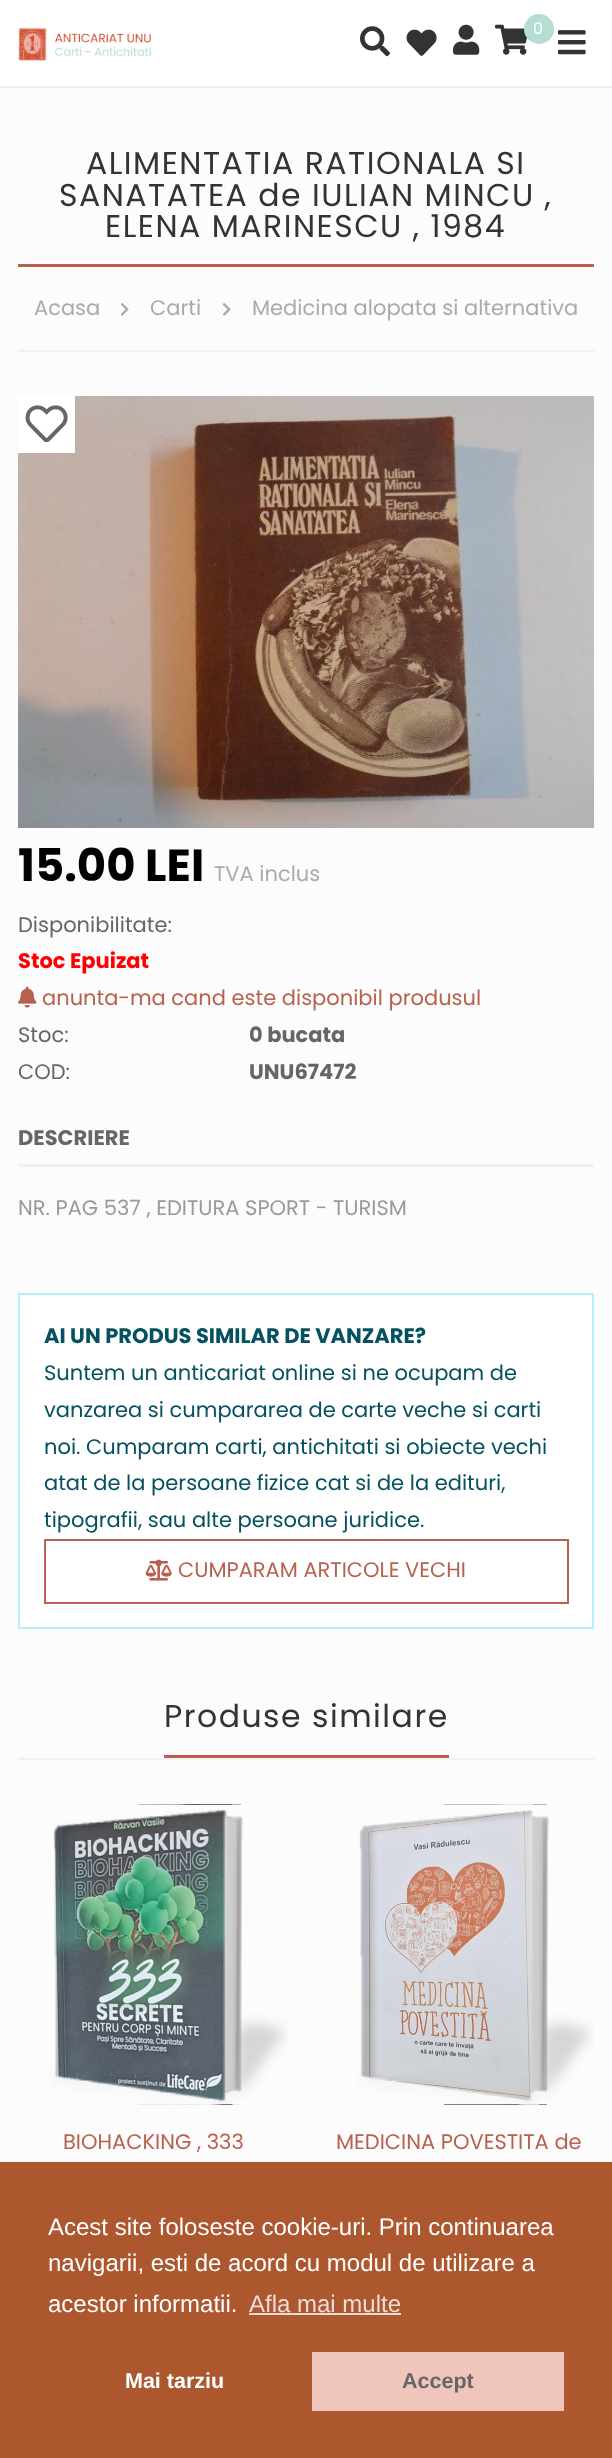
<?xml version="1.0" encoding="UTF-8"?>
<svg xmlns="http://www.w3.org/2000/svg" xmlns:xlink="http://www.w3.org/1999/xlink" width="612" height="2458">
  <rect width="100%" height="100%" fill="#fcfcfc" />
  <rect width="612" height="86" fill="#ffffff" />
  <rect y="86" width="612" height="2" fill="#f1f1f1" />
  <image x="18" y="27" width="133" height="35" xlink:href="image1.png" />
  <image x="360" y="26" width="30" height="31" xlink:href="image2.png" />
  <image x="406" y="29" width="31" height="27" xlink:href="image3.png" />
  <image x="453" y="24" width="27" height="31" xlink:href="image4.png" />
  <image x="495" y="24" width="32" height="31" xlink:href="image5.png" />
  <circle cx="539" cy="29" r="15" fill="#b4ded3" />
  <image x="558" y="30" width="28" height="25" xlink:href="image6.png" />
  <rect x="18" y="350" width="576" height="2" fill="#f1f1f1" />
  <rect x="18" y="264" width="576" height="3" fill="#b8614e" />
  <image x="120" y="303" width="9" height="13" xlink:href="image7.png" />
  <image x="222" y="303" width="9" height="13" xlink:href="image7.png" />
  <image x="18" y="396" width="576" height="432" xlink:href="image8.png" />
  <rect x="18" y="396" width="57" height="57" fill="#ffffff" />
  <image x="25" y="405" width="43" height="38" xlink:href="image9.png" />
  <image x="18" y="986" width="19" height="22" xlink:href="image10.png" />
  <rect x="18" y="1164" width="576" height="3" fill="#f1f1f1" />
  <rect x="19" y="1294" width="574" height="334" fill="#ffffff" stroke="#b6effb" stroke-width="2" />
  <rect x="45" y="1540" width="523" height="63" fill="none" stroke="#b8614e" stroke-width="2" />
  <image x="145" y="1559" width="27" height="22" xlink:href="image11.png" />
  <rect x="18" y="1758" width="576" height="2" fill="#f1f1f1" />
  <rect x="164" y="1755" width="285" height="3" fill="#b8614e" />
  <image x="53" y="1804" width="188" height="301" xlink:href="image13.png" />
  <image x="49" y="1804" width="239" height="301" xlink:href="image12.png" />
  <image x="359" y="1804" width="188" height="301" xlink:href="image15.png" />
  <image x="355" y="1804" width="239" height="301" xlink:href="image14.png" />
  <rect y="2162" width="612" height="296" fill="#ac572e" />
  <rect x="249" y="2313" width="152" height="2" fill="#eeddd5" />
  <rect x="312" y="2352" width="252" height="59" fill="#f0c5bc" />
  <text x="533" y="34" style="font-family: Poppins; font-size: 16px; fill: #ffffff">0</text>
  <text x="86" y="174" style="font-family: Poppins; font-size: 31.5px; letter-spacing: 1.5px; fill: #333333">ALIMENTATIA RATIONALA SI</text>
  <text x="59" y="206" style="font-family: Poppins; font-size: 31.5px; letter-spacing: 1.5px; fill: #333333">SANATATEA de IULIAN MINCU ,</text>
  <text x="105" y="237" style="font-family: Poppins; font-size: 31.5px; letter-spacing: 1.5px; fill: #333333">ELENA MARINESCU , 1984</text>
  <text x="34" y="315" style="font-family: Poppins; font-size: 21px; fill: #aaaaaa">Acasa</text>
  <text x="150" y="315" style="font-family: Poppins; font-size: 21px; fill: #aaaaaa">Carti</text>
  <text x="252" y="315" style="font-family: Poppins; font-size: 21px; fill: #aaaaaa">Medicina alopata si alternativa</text>
  <text x="18" y="881" style="font-family: Poppins; font-size: 45px; font-weight: bold; fill: #000000">15.00 LEI</text>
  <text x="214" y="881" style="font-family: Poppins; font-size: 21px; fill: #aaaaaa">TVA inclus</text>
  <text x="18" y="932" style="font-family: Poppins; font-size: 21px; fill: #666666">Disponibilitate:</text>
  <text x="18" y="968" style="font-family: Poppins; font-size: 21px; font-weight: bold; fill: #ff0000">Stoc Epuizat</text>
  <text x="42" y="1005" style="font-family: Poppins; font-size: 21px; fill: #b8614e">anunta-ma cand este disponibil produsul</text>
  <text x="18" y="1042" style="font-family: Poppins; font-size: 21px; fill: #666666">Stoc:</text>
  <text x="249" y="1042" style="font-family: Poppins; font-size: 21px; font-weight: bold; fill: #666666">0 bucata</text>
  <text x="18" y="1079" style="font-family: Poppins; font-size: 21px; fill: #666666">COD:</text>
  <text x="249" y="1079" style="font-family: Poppins; font-size: 21px; font-weight: bold; fill: #666666">UNU67472</text>
  <text x="18" y="1145" style="font-family: Poppins; font-size: 21px; font-weight: bold; fill: #666666">DESCRIERE</text>
  <text x="18" y="1215" style="font-family: Poppins; font-size: 21px; fill: #999999">NR. PAG 537 , EDITURA SPORT - TURISM</text>
  <text x="44" y="1343" style="font-family: Poppins; font-size: 21px; font-weight: bold; fill: #055160">AI UN PRODUS SIMILAR DE VANZARE?</text>
  <text x="44" y="1380" style="font-family: Poppins; font-size: 21px; fill: #055160">Suntem un anticariat online si ne ocupam de</text>
  <text x="44" y="1417" style="font-family: Poppins; font-size: 21px; fill: #055160">vanzarea si cumpararea de carte veche si carti</text>
  <text x="44" y="1454" style="font-family: Poppins; font-size: 21px; fill: #055160">noi. Cumparam carti, antichitati si obiecte vechi</text>
  <text x="44" y="1490" style="font-family: Poppins; font-size: 21px; fill: #055160">atat de la persoane fizice cat si de la edituri,</text>
  <text x="44" y="1527" style="font-family: Poppins; font-size: 21px; fill: #055160">tipografii, sau alte persoane juridice.</text>
  <text x="178" y="1577" style="font-family: Poppins; font-size: 21px; fill: #b8614e">CUMPARAM ARTICOLE VECHI</text>
  <text x="164" y="1727" style="font-family: Poppins; font-size: 31.5px; letter-spacing: 1.5px; fill: #333333">Produse similare</text>
  <text x="63" y="2149" style="font-family: Poppins; font-size: 21px; fill: #b8614e">BIOHACKING , 333</text>
  <text x="336" y="2149" style="font-family: Poppins; font-size: 21px; fill: #b8614e">MEDICINA POVESTITA de</text>
  <text x="48" y="2235" style="font-family: Liberation Sans; font-size: 24px; fill: #ffffff">Acest site foloseste cookie-uri. Prin continuarea</text>
  <text x="48" y="2271" style="font-family: Liberation Sans; font-size: 24px; fill: #ffffff">navigarii, esti de acord cu modul de utilizare a</text>
  <text x="48" y="2312" style="font-family: Liberation Sans; font-size: 24px; fill: #ffffff">acestor informatii.</text>
  <text x="249" y="2312" style="font-family: Liberation Sans; font-size: 24px; fill: #eeddd5">Afla mai multe</text>
  <text x="125" y="2388" style="font-family: Liberation Sans; font-size: 21.5px; font-weight: bold; fill: #ffffff">Mai tarziu</text>
  <text x="402" y="2388" style="font-family: Liberation Sans; font-size: 21.5px; font-weight: bold; fill: #666666">Accept</text>
</svg>
